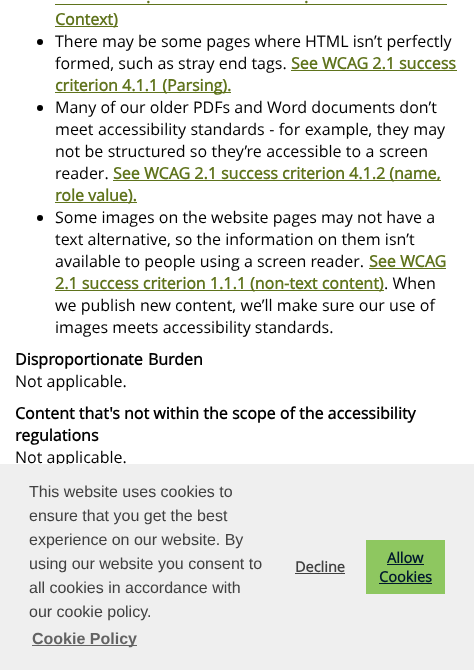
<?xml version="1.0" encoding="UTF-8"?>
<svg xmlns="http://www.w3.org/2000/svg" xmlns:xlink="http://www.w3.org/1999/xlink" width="474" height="670">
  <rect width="100%" height="100%" fill="#ffffff" />
  <rect x="55" y="4" width="392" height="1" fill="#5f731c" />
  <rect x="55" y="26" width="63" height="1" fill="#5f731c" />
  <circle cx="40" cy="42" r="3" fill="#000000" />
  <rect x="291" y="70" width="166" height="1" fill="#5f731c" />
  <rect x="55" y="92" width="176" height="1" fill="#5f731c" />
  <circle cx="40" cy="108" r="3" fill="#000000" />
  <rect x="113" y="180" width="328" height="1" fill="#5f731c" />
  <rect x="55" y="202" width="82" height="1" fill="#5f731c" />
  <circle cx="40" cy="218" r="3" fill="#000000" />
  <rect x="369" y="268" width="77" height="1" fill="#5f731c" />
  <rect x="55" y="290" width="329" height="1" fill="#5f731c" />
  <text x="146" y="3" style="font-family: Open Sans; font-size: 16px; font-weight: bold; fill: #5f731c">.</text>
  <text x="304" y="3" style="font-family: Open Sans; font-size: 16px; font-weight: bold; fill: #5f731c">.</text>
  <text x="55" y="25" style="font-family: Open Sans; font-size: 16px; font-weight: bold; fill: #5f731c">Context)</text>
  <text x="55" y="47" style="font-family: Open Sans; font-size: 16px; fill: #000000">There may be some pages where HTML isn’t perfectly</text>
  <text x="55" y="69" style="font-family: Open Sans; font-size: 16px; fill: #000000">formed, such as stray end tags.</text>
  <text x="291" y="69" style="font-family: Open Sans; font-size: 16px; font-weight: bold; fill: #5f731c">See WCAG 2.1 success</text>
  <text x="55" y="91" style="font-family: Open Sans; font-size: 16px; font-weight: bold; fill: #5f731c">criterion 4.1.1 (Parsing).</text>
  <text x="55" y="113" style="font-family: Open Sans; font-size: 16px; fill: #000000">Many of our older PDFs and Word documents don’t</text>
  <text x="55" y="135" word-spacing="0.25" style="font-family: Open Sans; font-size: 16px; fill: #000000">meet accessibility standards - for example, they may</text>
  <text x="55" y="157" word-spacing="0.25" style="font-family: Open Sans; font-size: 16px; fill: #000000">not be structured so they’re accessible to a screen</text>
  <text x="55" y="179" style="font-family: Open Sans; font-size: 16px; fill: #000000">reader.</text>
  <text x="113" y="179" style="font-family: Open Sans; font-size: 16px; font-weight: bold; fill: #5f731c">See WCAG 2.1 success criterion 4.1.2 (name,</text>
  <text x="55" y="201" style="font-family: Open Sans; font-size: 16px; font-weight: bold; fill: #5f731c">role value).</text>
  <text x="55" y="223" style="font-family: Open Sans; font-size: 16px; fill: #000000">Some images on the website pages may not have a</text>
  <text x="55" y="245" style="font-family: Open Sans; font-size: 16px; fill: #000000">text alternative, so the information on them isn’t</text>
  <text x="55" y="267" style="font-family: Open Sans; font-size: 16px; fill: #000000">available to people using a screen reader.</text>
  <text x="369" y="267" style="font-family: Open Sans; font-size: 16px; font-weight: bold; fill: #5f731c">See WCAG</text>
  <text x="55" y="289" style="font-family: Open Sans; font-size: 16px; font-weight: bold; fill: #5f731c">2.1 success criterion 1.1.1 (non-text content)</text>
  <text x="384" y="289" style="font-family: Open Sans; font-size: 16px; fill: #000000">. When</text>
  <text x="55" y="311" word-spacing="0.1" style="font-family: Open Sans; font-size: 16px; fill: #000000">we publish new content, we’ll make sure our use of</text>
  <text x="55" y="333" style="font-family: Open Sans; font-size: 16px; fill: #000000">images meets accessibility standards.</text>
  <text x="15" y="365" word-spacing="1" style="font-family: Open Sans; font-size: 16px; font-weight: bold; fill: #000000">Disproportionate Burden</text>
  <text x="15" y="387" style="font-family: Open Sans; font-size: 16px; fill: #000000">Not applicable.</text>
  <text x="15" y="419" style="font-family: Open Sans; font-size: 16px; font-weight: bold; fill: #000000">Content that's not within the scope of the accessibility</text>
  <text x="15" y="441" style="font-family: Open Sans; font-size: 16px; font-weight: bold; fill: #000000">regulations</text>
  <text x="15" y="463" style="font-family: Open Sans; font-size: 16px; fill: #000000">Not applicable.</text>
  <rect y="464" width="474" height="206" fill="#efefef" />
  <text x="29" y="497" style="font-family: Liberation Sans; font-size: 16px; fill: #404040">This website uses cookies to</text>
  <text x="29" y="521" style="font-family: Liberation Sans; font-size: 16px; fill: #404040">ensure that you get the best</text>
  <text x="29" y="545" style="font-family: Liberation Sans; font-size: 16px; fill: #404040">experience on our website. By</text>
  <text x="29" y="569" style="font-family: Liberation Sans; font-size: 16px; fill: #404040">using our website you consent to</text>
  <text x="29" y="593" style="font-family: Liberation Sans; font-size: 16px; fill: #404040">all cookies in accordance with</text>
  <text x="29" y="617" style="font-family: Liberation Sans; font-size: 16px; fill: #404040">our cookie policy.</text>
  <rect x="32" y="645" width="105" height="1" fill="#636363" />
  <text x="32" y="644" style="font-family: Liberation Sans; font-size: 16px; font-weight: bold; fill: #636363">Cookie Policy</text>
  <text x="295" y="572" style="font-family: Open Sans; font-size: 14.5px; font-weight: bold; fill: #404040">Decline</text>
  <rect x="295" y="573" width="50" height="1" fill="#404040" />
  <rect x="366" y="540" width="79" height="54" fill="#8ec760" />
  <text x="387" y="563" style="font-family: Open Sans; font-size: 14.5px; font-weight: bold; fill: #00182e">Allow</text>
  <rect x="387" y="564" width="37" height="1" fill="#00182e" />
  <text x="379" y="582" style="font-family: Open Sans; font-size: 14.5px; font-weight: bold; fill: #00182e">Cookies</text>
  <rect x="379" y="583" width="53" height="1" fill="#00182e" />
</svg>
